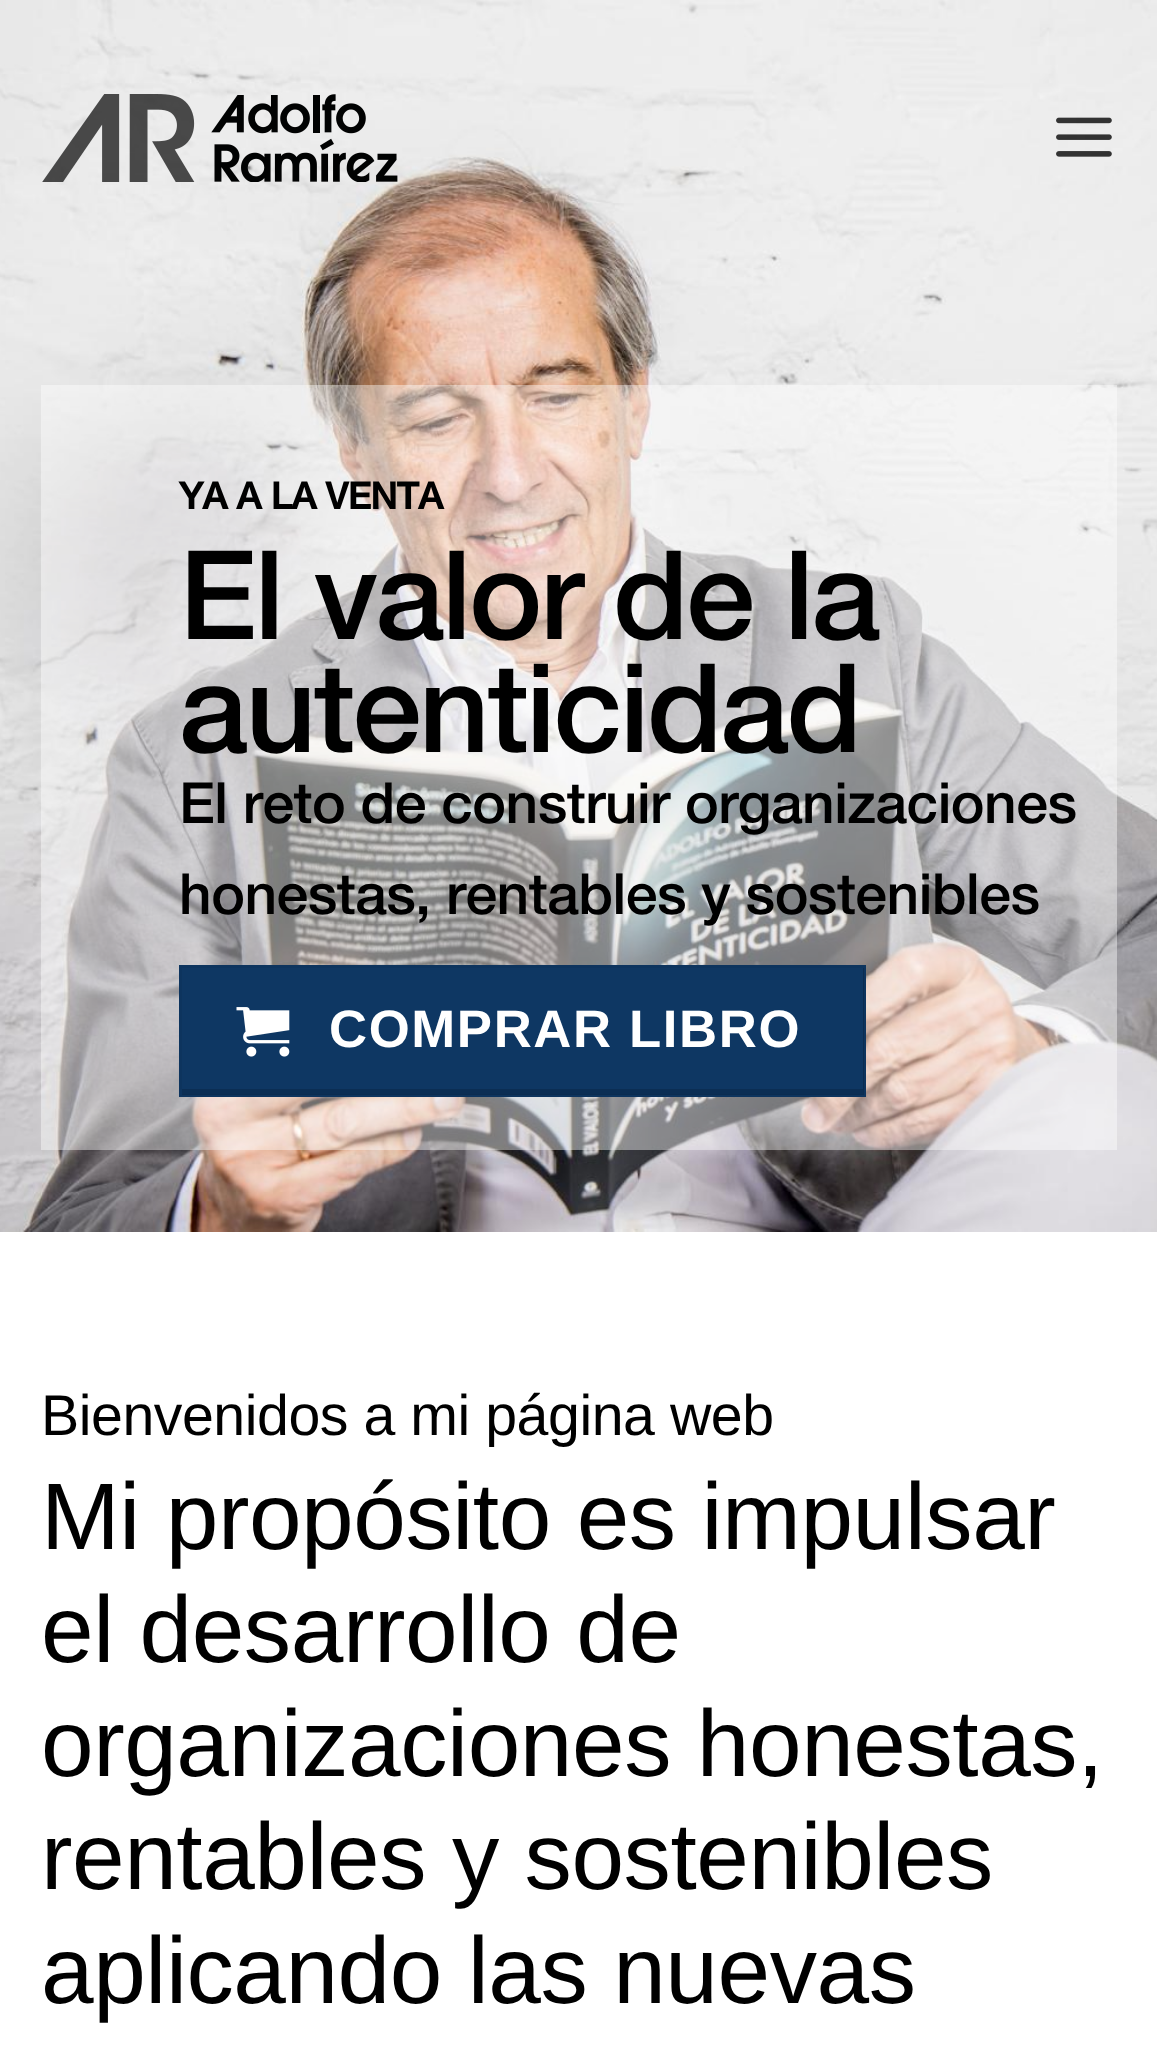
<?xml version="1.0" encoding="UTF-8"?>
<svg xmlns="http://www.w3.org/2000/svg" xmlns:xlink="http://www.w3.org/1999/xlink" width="1157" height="2060">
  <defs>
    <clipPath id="clip1"><rect x="182" y="968" width="682" height="127" /></clipPath>
  </defs>
  <rect width="100%" height="100%" fill="#ffffff" />
  <image x="0" y="0" width="1157" height="1232" xlink:href="image3.png" />
  <image x="42" y="94" width="356" height="88" xlink:href="image1.png" />
  <image x="1056" y="117" width="56" height="40" xlink:href="image2.png" />
  <rect x="41" y="385" width="1076" height="765" fill="#ffffff" fill-opacity="0.43" />
  <rect x="180.5" y="966.5" width="684" height="129" fill="#0e3763" stroke="#0d345e" stroke-width="3" />
  <image x="236" y="1007" width="54" height="50" xlink:href="image4.png" />
  <text x="179" y="509" style="font-family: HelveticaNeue; font-size: 37px; font-weight: bold; letter-spacing: -0.45px; fill: #000000">YA A LA VENTA</text>
  <text x="179" y="639" style="font-family: HelveticaNeue; font-size: 123.75px; font-weight: 500; letter-spacing: -2.5px; fill: #000000">El valor de la</text>
  <text x="179" y="752" style="font-family: HelveticaNeue; font-size: 123.75px; font-weight: 500; letter-spacing: -2.5px; fill: #000000">autenticidad</text>
  <text x="179" y="823" style="font-family: HelveticaNeue; font-size: 56.9px; font-weight: 500; letter-spacing: -0.5px; fill: #000000">El reto de construir organizaciones</text>
  <text x="179" y="914" style="font-family: HelveticaNeue; font-size: 56.9px; font-weight: 500; letter-spacing: -0.5px; fill: #000000">honestas, rentables y sostenibles</text>
  <text x="329" y="1047" style="font-family: Liberation Sans; font-size: 52.75px; font-weight: bold; letter-spacing: 1.6px; fill: #ffffff">COMPRAR LIBRO</text>
  <g clip-path="url(#clip1)">
    <path d="M -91 696 h 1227 v 671 h -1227 z m 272 267 h 682 v 126 h -682 z" fill="#000000" fill-opacity="0.15" fill-rule="evenodd" />
  </g>
  <text x="41" y="1435" style="font-family: Liberation Sans; font-size: 57.25px; letter-spacing: -0.45px; fill: #000000">Bienvenidos a mi página web</text>
  <text x="41" y="1549" style="font-family: Liberation Sans; font-size: 94.6px; letter-spacing: -0.45px; fill: #000000">Mi propósito es impulsar</text>
  <text x="41" y="1662" style="font-family: Liberation Sans; font-size: 94.6px; letter-spacing: -0.45px; fill: #000000">el desarrollo de</text>
  <text x="41" y="1776" style="font-family: Liberation Sans; font-size: 94.6px; letter-spacing: -0.45px; fill: #000000">organizaciones honestas,</text>
  <text x="41" y="1889" style="font-family: Liberation Sans; font-size: 94.6px; letter-spacing: -0.45px; fill: #000000">rentables y sostenibles</text>
  <text x="41" y="2003" style="font-family: Liberation Sans; font-size: 94.6px; letter-spacing: -0.45px; fill: #000000">aplicando las nuevas</text>
</svg>
